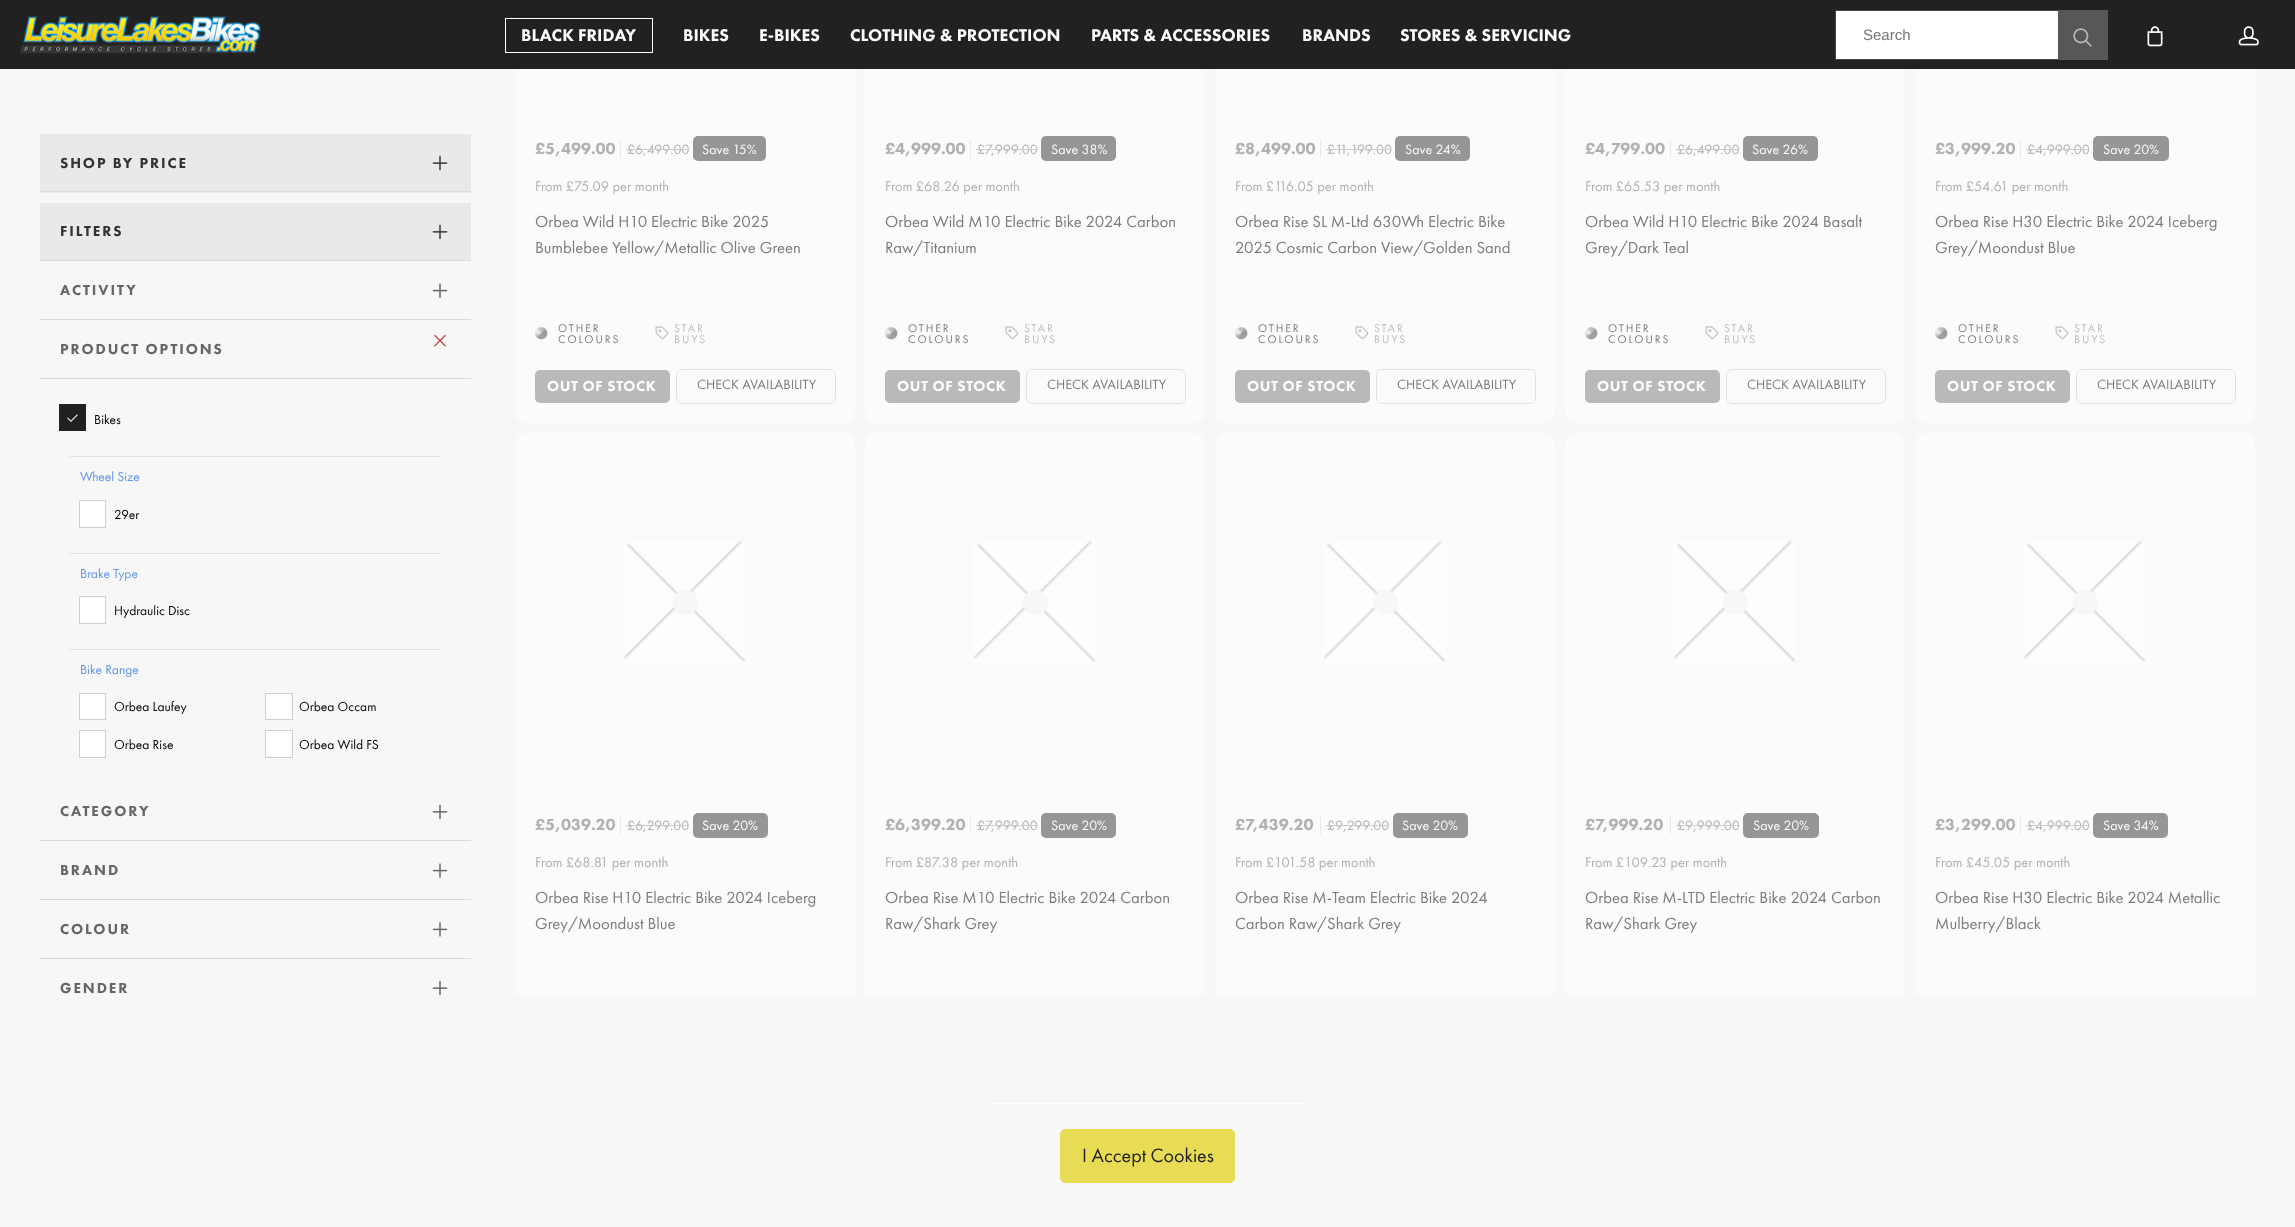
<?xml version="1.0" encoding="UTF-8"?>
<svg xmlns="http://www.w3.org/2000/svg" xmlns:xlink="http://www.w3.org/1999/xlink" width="2295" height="1227">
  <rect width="100%" height="100%" fill="#f7f7f7" />
  <rect x="515" y="-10" width="340" height="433" rx="10" fill="#fbfbfb" />
  <rect x="865" y="-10" width="340" height="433" rx="10" fill="#fbfbfb" />
  <rect x="1215" y="-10" width="340" height="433" rx="10" fill="#fbfbfb" />
  <rect x="1565" y="-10" width="340" height="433" rx="10" fill="#fbfbfb" />
  <rect x="1915" y="-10" width="340" height="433" rx="10" fill="#fbfbfb" />
  <rect width="2295" height="69" fill="#212121" />
  <image x="20" y="15" width="242" height="39" xlink:href="image1.png" />
  <rect x="505.5" y="18.5" width="147" height="34" fill="none" stroke="#ffffff" />
  <rect x="1836" y="11" width="222" height="48" fill="#ffffff" />
  <rect x="1835.5" y="10.5" width="272" height="49" fill="none" stroke="#444444" />
  <rect x="2058" y="10" width="50" height="50" fill="#575757" />
  <image x="2073" y="28" width="19" height="19" xlink:href="image2.png" />
  <image x="2147" y="26" width="16" height="21" xlink:href="image3.png" />
  <image x="2238" y="26" width="21" height="20" xlink:href="image4.png" />
  <rect x="40" y="134" width="431" height="59" fill="#e9e9e9" />
  <rect x="40" y="191" width="431" height="1" fill="#dadada" />
  <image x="432" y="155" width="16" height="16" xlink:href="image5.png" />
  <rect x="40" y="203" width="431" height="57" fill="#e9e9e9" />
  <rect x="40" y="260" width="431" height="1" fill="#dadada" />
  <image x="432" y="224" width="16" height="16" xlink:href="image6.png" />
  <rect x="40" y="319" width="431" height="1" fill="#dadada" />
  <image x="432" y="283" width="16" height="15" xlink:href="image7.png" />
  <rect x="40" y="378" width="431" height="1" fill="#dadada" />
  <image x="434" y="334" width="12" height="13" xlink:href="image8.png" />
  <rect x="59.5" y="404.5" width="26" height="26" fill="#212121" stroke="#212121" />
  <image x="67" y="414" width="11" height="8" xlink:href="image9.png" />
  <rect x="70" y="456" width="371" height="1" fill="#e0e0e0" />
  <rect x="80" y="501" width="25" height="25" fill="#ffffff" />
  <rect x="79.5" y="500.5" width="26" height="27" fill="none" stroke="#d0d0d0" />
  <rect x="70" y="553" width="371" height="1" fill="#e0e0e0" />
  <rect x="80" y="598" width="25" height="25" fill="#ffffff" />
  <rect x="79.5" y="596.5" width="26" height="27" fill="none" stroke="#d0d0d0" />
  <rect x="70" y="649" width="371" height="1" fill="#e0e0e0" />
  <rect x="79.5" y="693.5" width="26" height="26" fill="#ffffff" stroke="#d0d0d0" />
  <rect x="266" y="694" width="25" height="25" fill="#ffffff" />
  <rect x="265.5" y="693.5" width="27" height="26" fill="none" stroke="#d0d0d0" />
  <rect x="80" y="731" width="25" height="25" fill="#ffffff" />
  <rect x="79.5" y="730.5" width="26" height="27" fill="none" stroke="#d0d0d0" />
  <rect x="266" y="731" width="25" height="25" fill="#ffffff" />
  <rect x="265.5" y="730.5" width="27" height="27" fill="none" stroke="#d0d0d0" />
  <rect x="40" y="840" width="431" height="1" fill="#dadada" />
  <image x="432" y="804" width="16" height="16" xlink:href="image10.png" />
  <rect x="40" y="899" width="431" height="1" fill="#dadada" />
  <image x="432" y="863" width="16" height="15" xlink:href="image7.png" />
  <rect x="40" y="958" width="431" height="1" fill="#dadada" />
  <image x="432" y="922" width="16" height="15" xlink:href="image11.png" />
  <image x="432" y="980" width="16" height="15" xlink:href="image12.png" />
  <rect x="620" y="140" width="1" height="18" fill="#e9e9e9" />
  <rect x="693" y="136" width="73" height="25" rx="5" fill="#969696" />
  <image x="535" y="327" width="13" height="13" xlink:href="image13.png" />
  <image x="655" y="326" width="14" height="14" xlink:href="image14.png" />
  <rect x="535" y="370" width="135" height="33" rx="5" fill="#b9b9b9" />
  <rect x="676.5" y="369.5" width="159" height="34" rx="5.5" fill="none" stroke="#e3e3e3" />
  <rect x="970" y="140" width="1" height="18" fill="#e9e9e9" />
  <rect x="1041" y="136" width="75" height="25" rx="5" fill="#969696" />
  <image x="885" y="327" width="13" height="13" xlink:href="image13.png" />
  <image x="1005" y="326" width="14" height="14" xlink:href="image14.png" />
  <rect x="885" y="370" width="135" height="33" rx="5" fill="#b9b9b9" />
  <rect x="1026.5" y="369.5" width="159" height="34" rx="5.5" fill="none" stroke="#e3e3e3" />
  <rect x="1320" y="140" width="1" height="18" fill="#e9e9e9" />
  <rect x="1395" y="136" width="75" height="25" rx="5" fill="#969696" />
  <image x="1235" y="327" width="13" height="13" xlink:href="image13.png" />
  <image x="1355" y="326" width="14" height="14" xlink:href="image14.png" />
  <rect x="1235" y="370" width="135" height="33" rx="5" fill="#b9b9b9" />
  <rect x="1376.5" y="369.5" width="159" height="34" rx="5.5" fill="none" stroke="#e3e3e3" />
  <rect x="1670" y="140" width="1" height="18" fill="#e9e9e9" />
  <rect x="1743" y="136" width="75" height="25" rx="5" fill="#969696" />
  <image x="1585" y="327" width="13" height="13" xlink:href="image13.png" />
  <image x="1705" y="326" width="14" height="14" xlink:href="image14.png" />
  <rect x="1585" y="370" width="135" height="33" rx="5" fill="#b9b9b9" />
  <rect x="1726.5" y="369.5" width="159" height="34" rx="5.5" fill="none" stroke="#e3e3e3" />
  <rect x="2020" y="140" width="1" height="18" fill="#e9e9e9" />
  <rect x="2093" y="136" width="76" height="25" rx="5" fill="#969696" />
  <image x="1935" y="327" width="13" height="13" xlink:href="image13.png" />
  <image x="2055" y="326" width="14" height="14" xlink:href="image14.png" />
  <rect x="1935" y="370" width="135" height="33" rx="5" fill="#b9b9b9" />
  <rect x="2076.5" y="369.5" width="159" height="34" rx="5.5" fill="none" stroke="#e3e3e3" />
  <rect x="515" y="433" width="340" height="666" rx="10" fill="#fbfbfb" />
  <image x="623" y="540" width="123" height="122" xlink:href="image15.png" />
  <circle cx="685.5" cy="602.5" r="12.5" fill="#f7f7f7" />
  <rect x="620" y="816" width="1" height="18" fill="#e9e9e9" />
  <rect x="693" y="813" width="75" height="25" rx="5" fill="#969696" />
  <rect x="865" y="433" width="340" height="666" rx="10" fill="#fbfbfb" />
  <image x="973" y="540" width="123" height="122" xlink:href="image15.png" />
  <circle cx="1035.5" cy="602.5" r="12.5" fill="#f7f7f7" />
  <rect x="970" y="816" width="1" height="18" fill="#e9e9e9" />
  <rect x="1041" y="813" width="75" height="25" rx="5" fill="#969696" />
  <rect x="1215" y="433" width="340" height="666" rx="10" fill="#fbfbfb" />
  <image x="1323" y="540" width="123" height="122" xlink:href="image15.png" />
  <circle cx="1385.5" cy="602.5" r="12.5" fill="#f7f7f7" />
  <rect x="1320" y="816" width="1" height="18" fill="#e9e9e9" />
  <rect x="1393" y="813" width="75" height="25" rx="5" fill="#969696" />
  <rect x="1565" y="433" width="340" height="666" rx="10" fill="#fbfbfb" />
  <image x="1673" y="540" width="123" height="122" xlink:href="image15.png" />
  <circle cx="1735.5" cy="602.5" r="12.5" fill="#f7f7f7" />
  <rect x="1670" y="816" width="1" height="18" fill="#e9e9e9" />
  <rect x="1743" y="813" width="76" height="25" rx="5" fill="#969696" />
  <rect x="1915" y="433" width="340" height="666" rx="10" fill="#fbfbfb" />
  <image x="2023" y="540" width="123" height="122" xlink:href="image15.png" />
  <circle cx="2085.5" cy="602.5" r="12.5" fill="#f7f7f7" />
  <rect x="2020" y="816" width="1" height="18" fill="#e9e9e9" />
  <rect x="2093" y="813" width="75" height="25" rx="5" fill="#969696" />
  <rect x="515" y="995" width="1740" height="104" fill="#f7f7f7" />
  <rect x="991" y="1103" width="313" height="1" fill="#ffffff" />
  <rect x="1060.5" y="1129.5" width="174" height="53" rx="4.5" fill="#e8dc54" stroke="#e8dc54" />
  <text x="521" y="41" style="font-family: Futura PT; font-size: 17.5px; font-weight: 900; fill: #fbfbfb">BLACK FRIDAY</text>
  <text x="683" y="41" style="font-family: Futura PT; font-size: 17.5px; font-weight: 900; fill: #fbfbfb">BIKES</text>
  <text x="759" y="41" style="font-family: Futura PT; font-size: 17.5px; font-weight: 900; fill: #fbfbfb">E-BIKES</text>
  <text x="850" y="41" style="font-family: Futura PT; font-size: 17.5px; font-weight: 900; fill: #fbfbfb">CLOTHING &amp; PROTECTION</text>
  <text x="1091" y="41" style="font-family: Futura PT; font-size: 17.5px; font-weight: 900; fill: #fbfbfb">PARTS &amp; ACCESSORIES</text>
  <text x="1302" y="41" style="font-family: Futura PT; font-size: 17.5px; font-weight: 900; fill: #fbfbfb">BRANDS</text>
  <text x="1400" y="41" style="font-family: Futura PT; font-size: 17.5px; font-weight: 900; fill: #fbfbfb">STORES &amp; SERVICING</text>
  <text x="1863" y="40" style="font-family: Liberation Sans; font-size: 15px; fill: #757575">Search</text>
  <text x="60" y="168" style="font-family: Futura PT; font-size: 15px; font-weight: 900; letter-spacing: 1.9px; fill: #333333">SHOP BY PRICE</text>
  <text x="60" y="236" style="font-family: Futura PT; font-size: 15px; font-weight: 900; letter-spacing: 1.9px; fill: #333333">FILTERS</text>
  <text x="60" y="295" style="font-family: Futura PT; font-size: 15px; font-weight: 900; letter-spacing: 1.9px; fill: #666666">ACTIVITY</text>
  <text x="60" y="354" style="font-family: Futura PT; font-size: 15px; font-weight: 900; letter-spacing: 1.9px; fill: #666666">PRODUCT OPTIONS</text>
  <text x="94" y="424" style="font-family: Futura PT; font-size: 13.5px; fill: #000000">Bikes</text>
  <text x="80" y="481" style="font-family: Futura PT; font-size: 13.5px; fill: #6495ed">Wheel Size</text>
  <text x="114" y="519" style="font-family: Futura PT; font-size: 13.5px; fill: #000000">29er</text>
  <text x="80" y="578" style="font-family: Futura PT; font-size: 13.5px; fill: #6495ed">Brake Type</text>
  <text x="114" y="615" style="font-family: Futura PT; font-size: 13.5px; fill: #000000">Hydraulic Disc</text>
  <text x="80" y="674" style="font-family: Futura PT; font-size: 13.5px; fill: #6495ed">Bike Range</text>
  <text x="114" y="711" style="font-family: Futura PT; font-size: 13.5px; fill: #000000">Orbea Laufey</text>
  <text x="299" y="711" style="font-family: Futura PT; font-size: 13.5px; fill: #000000">Orbea Occam</text>
  <text x="114" y="749" style="font-family: Futura PT; font-size: 13.5px; fill: #000000">Orbea Rise</text>
  <text x="299" y="749" style="font-family: Futura PT; font-size: 13.5px; fill: #000000">Orbea Wild FS</text>
  <text x="60" y="816" style="font-family: Futura PT; font-size: 15px; font-weight: 900; letter-spacing: 1.9px; fill: #666666">CATEGORY</text>
  <text x="60" y="875" style="font-family: Futura PT; font-size: 15px; font-weight: 900; letter-spacing: 1.9px; fill: #666666">BRAND</text>
  <text x="60" y="934" style="font-family: Futura PT; font-size: 15px; font-weight: 900; letter-spacing: 1.9px; fill: #666666">COLOUR</text>
  <text x="60" y="993" style="font-family: Futura PT; font-size: 15px; font-weight: 900; letter-spacing: 1.9px; fill: #666666">GENDER</text>
  <text x="535" y="154" style="font-family: Futura PT; font-size: 16.7px; font-weight: 900; fill: #b1b1b1">£5,499.00</text>
  <text x="627" y="154" style="font-family: Futura PT; font-size: 14px; fill: #b1b1b1">£6,499.00</text>
  <rect x="626" y="149" width="63" height="1" fill="#cdcdcd" />
  <text x="702" y="154" style="font-family: Futura PT; font-size: 14px; fill: #fbfbfb">Save 15%</text>
  <text x="535" y="191" style="font-family: Futura PT; font-size: 14.5px; fill: #b1b1b1">From £75.09 per month</text>
  <text x="535" y="227" style="font-family: Futura PT; font-size: 16.7px; fill: #7c7c7c">Orbea Wild H10 Electric Bike 2025</text>
  <text x="535" y="253" style="font-family: Futura PT; font-size: 16.7px; fill: #7c7c7c">Bumblebee Yellow/Metallic Olive Green</text>
  <text x="558" y="332" style="font-family: Futura PT; font-size: 11.5px; letter-spacing: 2px; fill: #7c7c7c">OTHER</text>
  <text x="558" y="343" style="font-family: Futura PT; font-size: 11.5px; letter-spacing: 2px; fill: #7c7c7c">COLOURS</text>
  <text x="674" y="332" style="font-family: Futura PT; font-size: 11.5px; letter-spacing: 2px; fill: #bdbdbd">STAR</text>
  <text x="674" y="343" style="font-family: Futura PT; font-size: 11.5px; letter-spacing: 2px; fill: #bdbdbd">BUYS</text>
  <text x="547" y="391" style="font-family: Futura PT; font-size: 15px; font-weight: 900; letter-spacing: 0.6px; fill: #fbfbfb">OUT OF STOCK</text>
  <text x="697" y="389" style="font-family: Futura PT; font-size: 14px; fill: #7c7c7c">CHECK AVAILABILITY</text>
  <text x="885" y="154" style="font-family: Futura PT; font-size: 16.7px; font-weight: 900; fill: #b1b1b1">£4,999.00</text>
  <text x="977" y="154" style="font-family: Futura PT; font-size: 14px; fill: #b1b1b1">£7,999.00</text>
  <rect x="976" y="149" width="62" height="1" fill="#cdcdcd" />
  <text x="1051" y="154" style="font-family: Futura PT; font-size: 14px; fill: #fbfbfb">Save 38%</text>
  <text x="885" y="191" style="font-family: Futura PT; font-size: 14.5px; fill: #b1b1b1">From £68.26 per month</text>
  <text x="885" y="227" style="font-family: Futura PT; font-size: 16.7px; fill: #7c7c7c">Orbea Wild M10 Electric Bike 2024 Carbon</text>
  <text x="885" y="253" style="font-family: Futura PT; font-size: 16.7px; fill: #7c7c7c">Raw/Titanium</text>
  <text x="908" y="332" style="font-family: Futura PT; font-size: 11.5px; letter-spacing: 2px; fill: #7c7c7c">OTHER</text>
  <text x="908" y="343" style="font-family: Futura PT; font-size: 11.5px; letter-spacing: 2px; fill: #7c7c7c">COLOURS</text>
  <text x="1024" y="332" style="font-family: Futura PT; font-size: 11.5px; letter-spacing: 2px; fill: #bdbdbd">STAR</text>
  <text x="1024" y="343" style="font-family: Futura PT; font-size: 11.5px; letter-spacing: 2px; fill: #bdbdbd">BUYS</text>
  <text x="897" y="391" style="font-family: Futura PT; font-size: 15px; font-weight: 900; letter-spacing: 0.6px; fill: #fbfbfb">OUT OF STOCK</text>
  <text x="1047" y="389" style="font-family: Futura PT; font-size: 14px; fill: #7c7c7c">CHECK AVAILABILITY</text>
  <text x="1235" y="154" style="font-family: Futura PT; font-size: 16.7px; font-weight: 900; fill: #b1b1b1">£8,499.00</text>
  <text x="1327" y="154" style="font-family: Futura PT; font-size: 14px; fill: #b1b1b1">£11,199.00</text>
  <rect x="1326" y="149" width="65" height="1" fill="#cdcdcd" />
  <text x="1405" y="154" style="font-family: Futura PT; font-size: 14px; fill: #fbfbfb">Save 24%</text>
  <text x="1235" y="191" style="font-family: Futura PT; font-size: 14.5px; fill: #b1b1b1">From £116.05 per month</text>
  <text x="1235" y="227" style="font-family: Futura PT; font-size: 16.7px; fill: #7c7c7c">Orbea Rise SL M-Ltd 630Wh Electric Bike</text>
  <text x="1235" y="253" style="font-family: Futura PT; font-size: 16.7px; fill: #7c7c7c">2025 Cosmic Carbon View/Golden Sand</text>
  <text x="1258" y="332" style="font-family: Futura PT; font-size: 11.5px; letter-spacing: 2px; fill: #7c7c7c">OTHER</text>
  <text x="1258" y="343" style="font-family: Futura PT; font-size: 11.5px; letter-spacing: 2px; fill: #7c7c7c">COLOURS</text>
  <text x="1374" y="332" style="font-family: Futura PT; font-size: 11.5px; letter-spacing: 2px; fill: #bdbdbd">STAR</text>
  <text x="1374" y="343" style="font-family: Futura PT; font-size: 11.5px; letter-spacing: 2px; fill: #bdbdbd">BUYS</text>
  <text x="1247" y="391" style="font-family: Futura PT; font-size: 15px; font-weight: 900; letter-spacing: 0.6px; fill: #fbfbfb">OUT OF STOCK</text>
  <text x="1397" y="389" style="font-family: Futura PT; font-size: 14px; fill: #7c7c7c">CHECK AVAILABILITY</text>
  <text x="1585" y="154" style="font-family: Futura PT; font-size: 16.7px; font-weight: 900; fill: #b1b1b1">£4,799.00</text>
  <text x="1677" y="154" style="font-family: Futura PT; font-size: 14px; fill: #b1b1b1">£6,499.00</text>
  <rect x="1676" y="149" width="63" height="1" fill="#cdcdcd" />
  <text x="1752" y="154" style="font-family: Futura PT; font-size: 14px; fill: #fbfbfb">Save 26%</text>
  <text x="1585" y="191" style="font-family: Futura PT; font-size: 14.5px; fill: #b1b1b1">From £65.53 per month</text>
  <text x="1585" y="227" style="font-family: Futura PT; font-size: 16.7px; fill: #7c7c7c">Orbea Wild H10 Electric Bike 2024 Basalt</text>
  <text x="1585" y="253" style="font-family: Futura PT; font-size: 16.7px; fill: #7c7c7c">Grey/Dark Teal</text>
  <text x="1608" y="332" style="font-family: Futura PT; font-size: 11.5px; letter-spacing: 2px; fill: #7c7c7c">OTHER</text>
  <text x="1608" y="343" style="font-family: Futura PT; font-size: 11.5px; letter-spacing: 2px; fill: #7c7c7c">COLOURS</text>
  <text x="1724" y="332" style="font-family: Futura PT; font-size: 11.5px; letter-spacing: 2px; fill: #bdbdbd">STAR</text>
  <text x="1724" y="343" style="font-family: Futura PT; font-size: 11.5px; letter-spacing: 2px; fill: #bdbdbd">BUYS</text>
  <text x="1597" y="391" style="font-family: Futura PT; font-size: 15px; font-weight: 900; letter-spacing: 0.6px; fill: #fbfbfb">OUT OF STOCK</text>
  <text x="1747" y="389" style="font-family: Futura PT; font-size: 14px; fill: #7c7c7c">CHECK AVAILABILITY</text>
  <text x="1935" y="154" style="font-family: Futura PT; font-size: 16.7px; font-weight: 900; fill: #b1b1b1">£3,999.20</text>
  <text x="2027" y="154" style="font-family: Futura PT; font-size: 14px; fill: #b1b1b1">£4,999.00</text>
  <rect x="2026" y="149" width="63" height="1" fill="#cdcdcd" />
  <text x="2103" y="154" style="font-family: Futura PT; font-size: 14px; fill: #fbfbfb">Save 20%</text>
  <text x="1935" y="191" style="font-family: Futura PT; font-size: 14.5px; fill: #b1b1b1">From £54.61 per month</text>
  <text x="1935" y="227" style="font-family: Futura PT; font-size: 16.7px; fill: #7c7c7c">Orbea Rise H30 Electric Bike 2024 Iceberg</text>
  <text x="1935" y="253" style="font-family: Futura PT; font-size: 16.7px; fill: #7c7c7c">Grey/Moondust Blue</text>
  <text x="1958" y="332" style="font-family: Futura PT; font-size: 11.5px; letter-spacing: 2px; fill: #7c7c7c">OTHER</text>
  <text x="1958" y="343" style="font-family: Futura PT; font-size: 11.5px; letter-spacing: 2px; fill: #7c7c7c">COLOURS</text>
  <text x="2074" y="332" style="font-family: Futura PT; font-size: 11.5px; letter-spacing: 2px; fill: #bdbdbd">STAR</text>
  <text x="2074" y="343" style="font-family: Futura PT; font-size: 11.5px; letter-spacing: 2px; fill: #bdbdbd">BUYS</text>
  <text x="1947" y="391" style="font-family: Futura PT; font-size: 15px; font-weight: 900; letter-spacing: 0.6px; fill: #fbfbfb">OUT OF STOCK</text>
  <text x="2097" y="389" style="font-family: Futura PT; font-size: 14px; fill: #7c7c7c">CHECK AVAILABILITY</text>
  <text x="535" y="830" style="font-family: Futura PT; font-size: 16.7px; font-weight: 900; fill: #b1b1b1">£5,039.20</text>
  <text x="627" y="830" style="font-family: Futura PT; font-size: 14px; fill: #b1b1b1">£6,299.00</text>
  <rect x="626" y="825" width="63" height="1" fill="#cdcdcd" />
  <text x="702" y="830" style="font-family: Futura PT; font-size: 14px; fill: #fbfbfb">Save 20%</text>
  <text x="535" y="867" style="font-family: Futura PT; font-size: 14.5px; fill: #b1b1b1">From £68.81 per month</text>
  <text x="535" y="903" style="font-family: Futura PT; font-size: 16.7px; fill: #7c7c7c">Orbea Rise H10 Electric Bike 2024 Iceberg</text>
  <text x="535" y="929" style="font-family: Futura PT; font-size: 16.7px; fill: #7c7c7c">Grey/Moondust Blue</text>
  <text x="885" y="830" style="font-family: Futura PT; font-size: 16.7px; font-weight: 900; fill: #b1b1b1">£6,399.20</text>
  <text x="977" y="830" style="font-family: Futura PT; font-size: 14px; fill: #b1b1b1">£7,999.00</text>
  <rect x="976" y="825" width="62" height="1" fill="#cdcdcd" />
  <text x="1051" y="830" style="font-family: Futura PT; font-size: 14px; fill: #fbfbfb">Save 20%</text>
  <text x="885" y="867" style="font-family: Futura PT; font-size: 14.5px; fill: #b1b1b1">From £87.38 per month</text>
  <text x="885" y="903" style="font-family: Futura PT; font-size: 16.7px; fill: #7c7c7c">Orbea Rise M10 Electric Bike 2024 Carbon</text>
  <text x="885" y="929" style="font-family: Futura PT; font-size: 16.7px; fill: #7c7c7c">Raw/Shark Grey</text>
  <text x="1235" y="830" style="font-family: Futura PT; font-size: 16.7px; font-weight: 900; fill: #b1b1b1">£7,439.20</text>
  <text x="1327" y="830" style="font-family: Futura PT; font-size: 14px; fill: #b1b1b1">£9,299.00</text>
  <rect x="1326" y="825" width="63" height="1" fill="#cdcdcd" />
  <text x="1402" y="830" style="font-family: Futura PT; font-size: 14px; fill: #fbfbfb">Save 20%</text>
  <text x="1235" y="867" style="font-family: Futura PT; font-size: 14.5px; fill: #b1b1b1">From £101.58 per month</text>
  <text x="1235" y="903" style="font-family: Futura PT; font-size: 16.7px; fill: #7c7c7c">Orbea Rise M-Team Electric Bike 2024</text>
  <text x="1235" y="929" style="font-family: Futura PT; font-size: 16.7px; fill: #7c7c7c">Carbon Raw/Shark Grey</text>
  <text x="1585" y="830" style="font-family: Futura PT; font-size: 16.7px; font-weight: 900; fill: #b1b1b1">£7,999.20</text>
  <text x="1677" y="830" style="font-family: Futura PT; font-size: 14px; fill: #b1b1b1">£9,999.00</text>
  <rect x="1676" y="825" width="63" height="1" fill="#cdcdcd" />
  <text x="1753" y="830" style="font-family: Futura PT; font-size: 14px; fill: #fbfbfb">Save 20%</text>
  <text x="1585" y="867" style="font-family: Futura PT; font-size: 14.5px; fill: #b1b1b1">From £109.23 per month</text>
  <text x="1585" y="903" style="font-family: Futura PT; font-size: 16.7px; fill: #7c7c7c">Orbea Rise M-LTD Electric Bike 2024 Carbon</text>
  <text x="1585" y="929" style="font-family: Futura PT; font-size: 16.7px; fill: #7c7c7c">Raw/Shark Grey</text>
  <text x="1935" y="830" style="font-family: Futura PT; font-size: 16.7px; font-weight: 900; fill: #b1b1b1">£3,299.00</text>
  <text x="2027" y="830" style="font-family: Futura PT; font-size: 14px; fill: #b1b1b1">£4,999.00</text>
  <rect x="2026" y="825" width="63" height="1" fill="#cdcdcd" />
  <text x="2103" y="830" style="font-family: Futura PT; font-size: 14px; fill: #fbfbfb">Save 34%</text>
  <text x="1935" y="867" style="font-family: Futura PT; font-size: 14.5px; fill: #b1b1b1">From £45.05 per month</text>
  <text x="1935" y="903" style="font-family: Futura PT; font-size: 16.7px; fill: #7c7c7c">Orbea Rise H30 Electric Bike 2024 Metallic</text>
  <text x="1935" y="929" style="font-family: Futura PT; font-size: 16.7px; fill: #7c7c7c">Mulberry/Black</text>
  <text x="1082" y="1162" style="font-family: Futura PT; font-size: 20px; fill: #222222">I Accept Cookies</text>
</svg>
